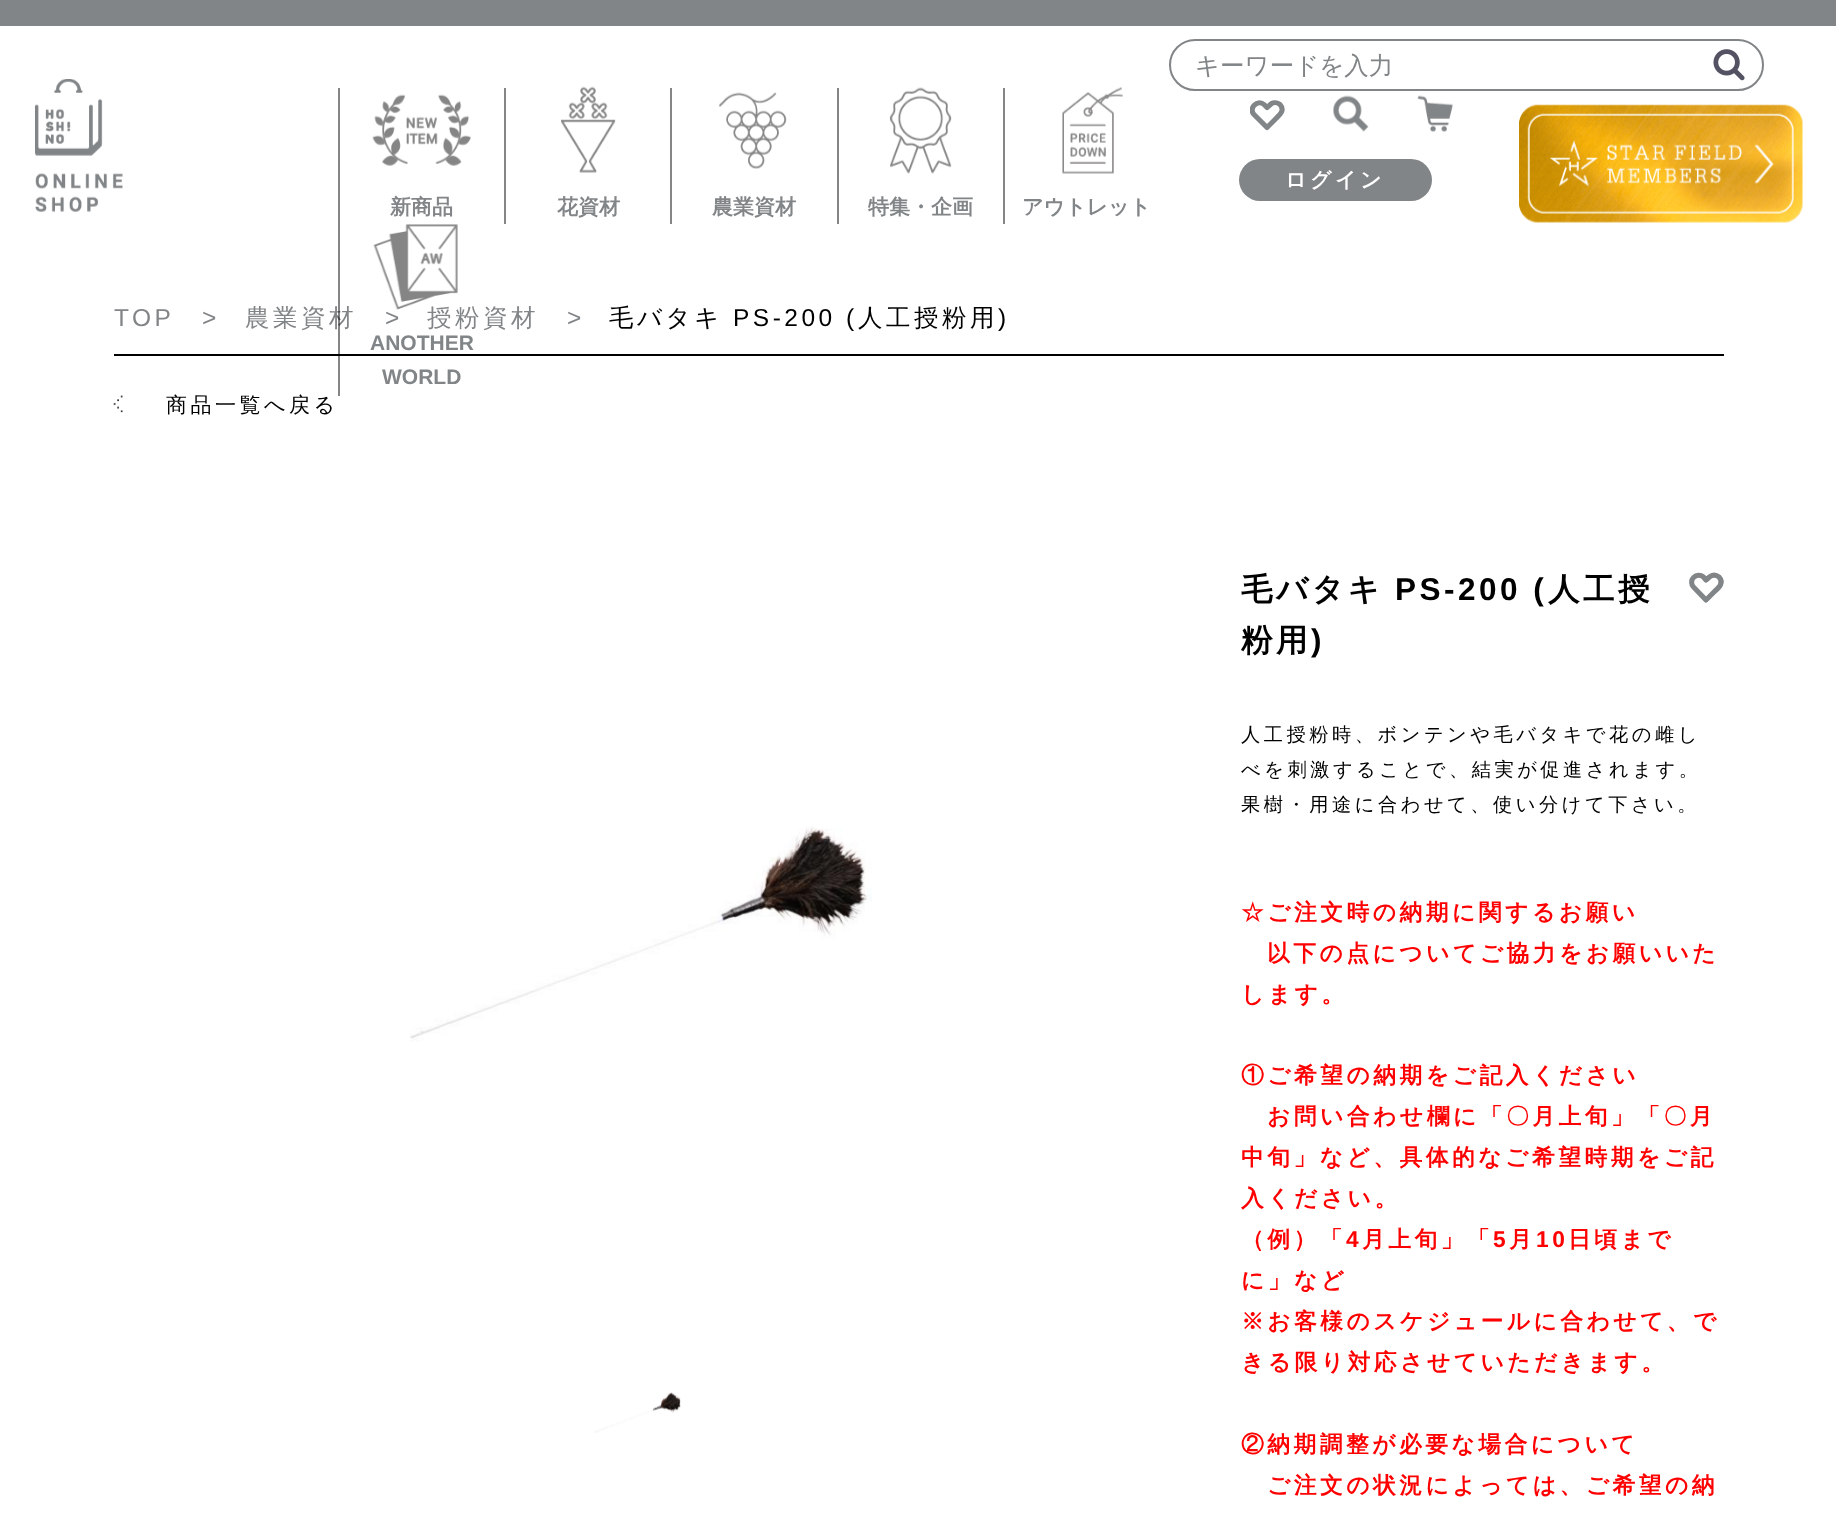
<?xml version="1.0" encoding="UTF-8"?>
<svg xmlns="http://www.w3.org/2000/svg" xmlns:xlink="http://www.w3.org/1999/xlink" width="1836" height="1514">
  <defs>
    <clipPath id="clip1"><rect x="1250" y="96" width="35" height="35" /></clipPath>
  </defs>
  <rect width="100%" height="100%" fill="#ffffff" />
  <rect width="1836" height="26" fill="#828587" />
  <image x="35" y="79" width="88" height="133" xlink:href="image1.png" />
  <rect x="1170" y="40" width="593" height="50" rx="25" fill="none" stroke="#828587" stroke-width="2" />
  <image x="1713" y="49" width="32" height="32" xlink:href="image2.png" />
  <image x="1333" y="95" width="36" height="37" xlink:href="image3.png" />
  <g clip-path="url(#clip1)">
    <path d="M 1280 104.5 c -2.5 -2 -6.5 -2.5 -9 -0.5 l -4 3.5 l -3 -3 c -2.5 -2.5 -7 -2.5 -9.5 0.5 c -3 2.5 -3 7 -0.5 9.5 l 13 13 l 8.5 -8.5 c 3.5 -3.5 10 -8.5 4.5 -14.5 z" fill="none" stroke="#818587" stroke-width="5.1" stroke-linecap="round" stroke-linejoin="round" />
  </g>
  <image x="1417" y="95" width="36" height="37" xlink:href="image4.png" />
  <rect x="1239" y="159" width="193" height="42" rx="21" fill="#828587" />
  <image x="1519" y="104" width="284" height="119" xlink:href="image5.png" />
  <rect x="338" y="88" width="2" height="136" fill="#858585" />
  <image x="372" y="94" width="99" height="72" xlink:href="image6.png" />
  <rect x="504" y="88" width="2" height="136" fill="#858585" />
  <image x="561" y="86" width="55" height="87" xlink:href="image7.png" />
  <rect x="670" y="88" width="2" height="136" fill="#858585" />
  <image x="719" y="92" width="68" height="77" xlink:href="image8.png" />
  <rect x="837" y="88" width="2" height="136" fill="#858585" />
  <image x="889" y="87" width="63" height="87" xlink:href="image9.png" />
  <rect x="1003" y="88" width="2" height="136" fill="#858585" />
  <image x="1062" y="87" width="61" height="87" xlink:href="image10.png" />
  <rect x="114" y="354" width="1610" height="2" fill="#000000" />
  <image x="113" y="395" width="10" height="18" xlink:href="image12.png" />
  <image x="410" y="826" width="462" height="216" xlink:href="image13.png" />
  <image x="594" y="1392" width="88" height="41" xlink:href="image14.png" />
  <path d="M 1719 577 c -2.5 -2 -6 -2.5 -9 -0.5 l -4 3.5 l -2.5 -3 c -3 -2.5 -7 -2.5 -10 0.5 c -2.5 2.5 -2.5 7 0 9.5 l 12.5 13 l 8.5 -8.5 c 4 -3.5 10 -8.5 4.5 -14.5 z" fill="none" stroke="#818587" stroke-width="5.1" stroke-linecap="round" stroke-linejoin="round" />
  <text x="1195" y="74" style="font-family: WenQuanYi Zen Hei; font-size: 24.5px; font-weight: 500; fill: #828587">キーワードを入力</text>
  <text x="1285" y="187" style="font-family: WenQuanYi Zen Hei; font-size: 21px; font-weight: bold; letter-spacing: 3.5px; fill: #ffffff">ログイン</text>
  <text x="390" y="214" style="font-family: WenQuanYi Zen Hei; font-size: 21px; font-weight: bold; fill: #828587">新商品</text>
  <text x="557" y="214" style="font-family: WenQuanYi Zen Hei; font-size: 21px; font-weight: bold; fill: #828587">花資材</text>
  <text x="712" y="214" style="font-family: WenQuanYi Zen Hei; font-size: 21px; font-weight: bold; fill: #828587">農業資材</text>
  <text x="868" y="214" style="font-family: WenQuanYi Zen Hei; font-size: 21px; font-weight: bold; fill: #828587">特集・企画</text>
  <text x="1022" y="214" style="font-family: WenQuanYi Zen Hei; font-size: 21px; font-weight: bold; fill: #828587">アウトレット</text>
  <text x="370" y="350" style="font-family: Liberation Sans; font-size: 21px; font-weight: bold; fill: #828587">ANOTHER</text>
  <text x="382" y="384" style="font-family: Liberation Sans; font-size: 21px; font-weight: bold; fill: #828587">WORLD</text>
  <text x="114" y="326" style="font-family: Liberation Sans; font-size: 24.5px; letter-spacing: 3.5px; fill: #828587">TOP</text>
  <text x="202" y="326" style="font-family: Liberation Sans; font-size: 24.5px; letter-spacing: 3.5px; fill: #828587">&gt;</text>
  <text x="245" y="326" style="font-family: WenQuanYi Zen Hei; font-size: 24.5px; font-weight: 500; letter-spacing: 3.5px; fill: #828587">農業資材</text>
  <rect x="338" y="224" width="2" height="172" fill="#000000" fill-opacity="0.48" />
  <text x="385" y="326" style="font-family: Liberation Sans; font-size: 24.5px; letter-spacing: 3.5px; fill: #828587">&gt;</text>
  <text x="427" y="326" style="font-family: WenQuanYi Zen Hei; font-size: 24.5px; font-weight: 500; letter-spacing: 3.5px; fill: #828587">授粉資材</text>
  <image x="373" y="224" width="85" height="86" xlink:href="image11.png" />
  <text x="567" y="326" style="font-family: Liberation Sans; font-size: 24.5px; letter-spacing: 3.5px; fill: #828587">&gt;</text>
  <text x="609" y="326" style="font-family: WenQuanYi Zen Hei; font-size: 24.5px; font-weight: 500; letter-spacing: 3.5px; fill: #000000">毛バタキ</text>
  <text x="733" y="326" style="font-family: Liberation Sans; font-size: 24.5px; letter-spacing: 3.5px; fill: #000000">PS-200 (</text>
  <text x="858" y="326" style="font-family: WenQuanYi Zen Hei; font-size: 24.5px; font-weight: 500; letter-spacing: 3.5px; fill: #000000">人工授粉用</text>
  <text x="998" y="326" style="font-family: Liberation Sans; font-size: 24.5px; letter-spacing: 3.5px; fill: #000000">)</text>
  <text x="166" y="412" style="font-family: WenQuanYi Zen Hei; font-size: 21px; font-weight: 500; letter-spacing: 3.5px; fill: #000000">商品一覧へ戻る</text>
  <text x="1241" y="600" style="font-family: WenQuanYi Zen Hei; font-size: 31.5px; font-weight: bold; letter-spacing: 3.5px; fill: #000000">毛バタキ</text>
  <text x="1395" y="600" style="font-family: Liberation Sans; font-size: 31.5px; font-weight: bold; letter-spacing: 3.5px; fill: #000000">PS-200 (</text>
  <text x="1548" y="600" style="font-family: WenQuanYi Zen Hei; font-size: 31.5px; font-weight: bold; letter-spacing: 3.5px; fill: #000000">人工授</text>
  <text x="1241" y="651" style="font-family: WenQuanYi Zen Hei; font-size: 31.5px; font-weight: bold; letter-spacing: 3.5px; fill: #000000">粉用</text>
  <text x="1311" y="651" style="font-family: Liberation Sans; font-size: 31.5px; font-weight: bold; letter-spacing: 3.5px; fill: #000000">)</text>
  <text x="1241" y="741" style="font-family: WenQuanYi Zen Hei; font-size: 19.25px; font-weight: 500; letter-spacing: 3.5px; fill: #000000">人工授粉時、ボンテンや毛バタキで花の雌し</text>
  <text x="1241" y="776" style="font-family: WenQuanYi Zen Hei; font-size: 19.25px; font-weight: 500; letter-spacing: 3.5px; fill: #000000">べを刺激することで、結実が促進されます。</text>
  <text x="1241" y="811" style="font-family: WenQuanYi Zen Hei; font-size: 19.25px; font-weight: 500; letter-spacing: 3.5px; fill: #000000">果樹・用途に合わせて、使い分けて下さい。</text>
  <text x="1241" y="920" style="font-family: WenQuanYi Zen Hei; font-size: 22.75px; font-weight: bold; letter-spacing: 3.5px; fill: #ff0000">☆ご注文時の納期に関するお願い</text>
  <text x="1267" y="961" style="font-family: WenQuanYi Zen Hei; font-size: 22.75px; font-weight: bold; letter-spacing: 3.5px; fill: #ff0000">以下の点についてご協力をお願いいた</text>
  <text x="1241" y="1002" style="font-family: WenQuanYi Zen Hei; font-size: 22.75px; font-weight: bold; letter-spacing: 3.5px; fill: #ff0000">します。</text>
  <text x="1241" y="1083" style="font-family: WenQuanYi Zen Hei; font-size: 22.75px; font-weight: bold; letter-spacing: 3.5px; fill: #ff0000">①ご希望の納期をご記入ください</text>
  <text x="1267" y="1124" style="font-family: WenQuanYi Zen Hei; font-size: 22.75px; font-weight: bold; letter-spacing: 3.5px; fill: #ff0000">お問い合わせ欄に「〇月上旬」「〇月</text>
  <text x="1241" y="1165" style="font-family: WenQuanYi Zen Hei; font-size: 22.75px; font-weight: bold; letter-spacing: 3.5px; fill: #ff0000">中旬」など、具体的なご希望時期をご記</text>
  <text x="1241" y="1206" style="font-family: WenQuanYi Zen Hei; font-size: 22.75px; font-weight: bold; letter-spacing: 3.5px; fill: #ff0000">入ください。</text>
  <text x="1241" y="1247" style="font-family: WenQuanYi Zen Hei; font-size: 22.75px; font-weight: bold; letter-spacing: 3.5px; fill: #ff0000">（例）「</text>
  <text x="1346" y="1247" style="font-family: Liberation Sans; font-size: 22.75px; font-weight: bold; letter-spacing: 3.5px; fill: #ff0000">4</text>
  <text x="1362" y="1247" style="font-family: WenQuanYi Zen Hei; font-size: 22.75px; font-weight: bold; letter-spacing: 3.5px; fill: #ff0000">月上旬」「</text>
  <text x="1493" y="1247" style="font-family: Liberation Sans; font-size: 22.75px; font-weight: bold; letter-spacing: 3.5px; fill: #ff0000">5</text>
  <text x="1509" y="1247" style="font-family: WenQuanYi Zen Hei; font-size: 22.75px; font-weight: bold; letter-spacing: 3.5px; fill: #ff0000">月</text>
  <text x="1536" y="1247" style="font-family: Liberation Sans; font-size: 22.75px; font-weight: bold; letter-spacing: 3.5px; fill: #ff0000">10</text>
  <text x="1568" y="1247" style="font-family: WenQuanYi Zen Hei; font-size: 22.75px; font-weight: bold; letter-spacing: 3.5px; fill: #ff0000">日頃まで</text>
  <text x="1241" y="1288" style="font-family: WenQuanYi Zen Hei; font-size: 22.75px; font-weight: bold; letter-spacing: 3.5px; fill: #ff0000">に」など</text>
  <text x="1241" y="1329" style="font-family: WenQuanYi Zen Hei; font-size: 22.75px; font-weight: bold; letter-spacing: 3.5px; fill: #ff0000">※お客様のスケジュールに合わせて、で</text>
  <text x="1241" y="1370" style="font-family: WenQuanYi Zen Hei; font-size: 22.75px; font-weight: bold; letter-spacing: 3.5px; fill: #ff0000">きる限り対応させていただきます。</text>
  <text x="1241" y="1452" style="font-family: WenQuanYi Zen Hei; font-size: 22.75px; font-weight: bold; letter-spacing: 3.5px; fill: #ff0000">②納期調整が必要な場合について</text>
  <text x="1267" y="1493" style="font-family: WenQuanYi Zen Hei; font-size: 22.75px; font-weight: bold; letter-spacing: 3.5px; fill: #ff0000">ご注文の状況によっては、ご希望の納</text>
</svg>
